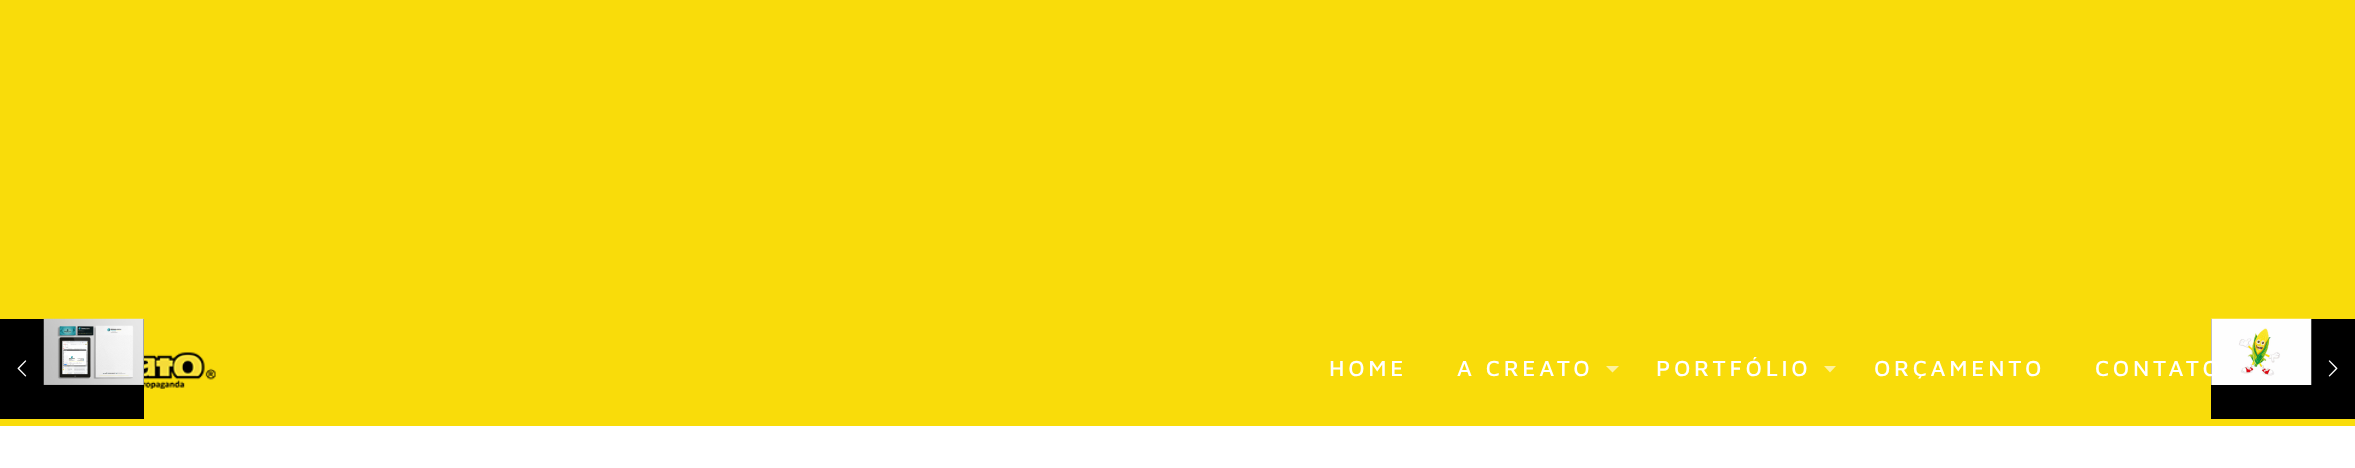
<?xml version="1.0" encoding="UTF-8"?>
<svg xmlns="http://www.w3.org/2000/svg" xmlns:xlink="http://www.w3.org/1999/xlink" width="2355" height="468">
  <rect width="100%" height="100%" fill="#f9dc0a" />
  <rect y="319" width="144" height="100" fill="#000000" />
  <image x="43" y="318" width="101" height="67" xlink:href="image1.png" />
  <image x="17" y="360" width="10" height="17" xlink:href="image2.png" />
  <image x="144" y="352" width="72" height="37" xlink:href="image3.png" />
  <path d="M 1606 366 h 13 l -6.5 6.5 z" fill="#fdf19d" />
  <path d="M 1824 366 h 12 l -6 6.5 z" fill="#fdf19d" />
  <rect y="426" width="2355" height="42" fill="#ffffff" />
  <rect x="2211" y="319" width="144" height="100" fill="#000000" />
  <image x="2211" y="318" width="101" height="67" xlink:href="image4.png" />
  <image x="2328" y="360" width="10" height="17" xlink:href="image5.png" />
  <text x="1329" y="376" style="font-family: Maven Pro; font-size: 22.5px; font-weight: 500; letter-spacing: 3.75px; fill: #ffffff">HOME</text>
  <text x="1457" y="376" style="font-family: Maven Pro; font-size: 22.5px; font-weight: 500; letter-spacing: 3.75px; fill: #ffffff">A CREATO</text>
  <text x="1656" y="376" style="font-family: Maven Pro; font-size: 22.5px; font-weight: 500; letter-spacing: 3.75px; fill: #ffffff">PORTFÓLIO</text>
  <text x="1874" y="376" style="font-family: Maven Pro; font-size: 22.5px; font-weight: 500; letter-spacing: 3.75px; fill: #ffffff">ORÇAMENTO</text>
  <text x="2095" y="376" style="font-family: Maven Pro; font-size: 22.5px; font-weight: 500; letter-spacing: 3.75px; fill: #ffffff">CONTATO</text>
</svg>
